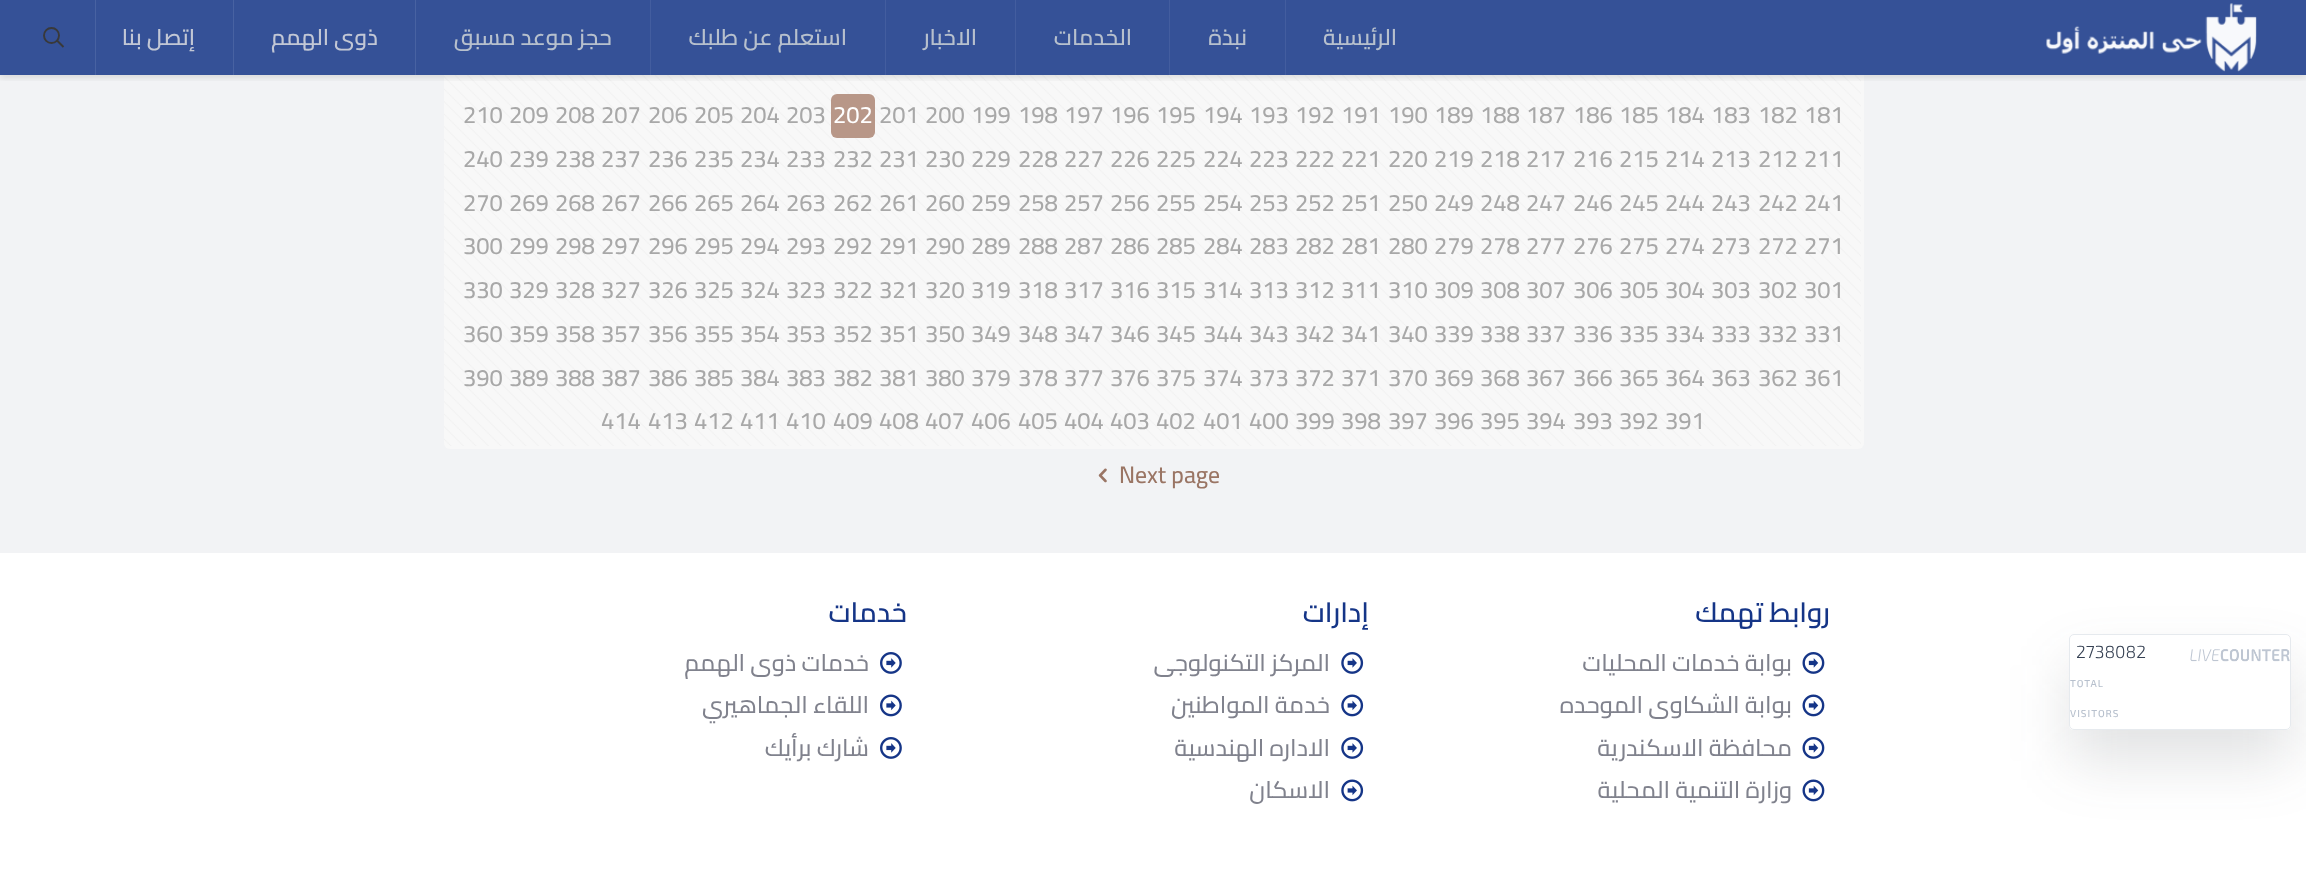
<?xml version="1.0" encoding="UTF-8"?>
<svg xmlns="http://www.w3.org/2000/svg" xmlns:xlink="http://www.w3.org/1999/xlink" width="2306" height="880">
  <defs>
    <clipPath id="clip1"><rect x="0" y="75" width="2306" height="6" /></clipPath>
    <clipPath id="clip2"><path d="M 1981 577 h 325 v 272 h -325 z m 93 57 h 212 c 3 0 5 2 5 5 v 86 c 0 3 -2 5 -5 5 h -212 c -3 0 -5 -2 -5 -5 v -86 c 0 -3 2 -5 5 -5 z" clip-rule="evenodd" /></clipPath>
  </defs>
  <rect width="100%" height="100%" fill="#f2f3f5" />
  <rect x="444" y="-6" width="1420" height="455" rx="6" fill="#f8f8f8" />
  <image x="444" y="0" width="1417" height="446" xlink:href="image2.png" />
  <g clip-path="url(#clip1)">
    <rect y="3" width="2306" height="75" fill="#000000" fill-opacity="0.1" filter="blur(3px)" />
  </g>
  <rect width="2306" height="75" fill="#2e4b94" fill-opacity="0.97" />
  <rect x="95" width="1" height="75" fill="#4862a2" />
  <circle cx="51.5" cy="35.5" r="7.5" fill="none" stroke="#393939" stroke-width="1.9" />
  <path d="M 57 40.5 l 6.5 6.5" fill="none" stroke="#393939" stroke-width="1.9" />
  <rect x="233" width="1" height="75" fill="#4862a2" />
  <rect x="415" width="1" height="75" fill="#4862a2" />
  <rect x="650" width="1" height="75" fill="#435d9f" />
  <rect x="885" width="1" height="75" fill="#435d9f" />
  <rect x="1015" width="1" height="75" fill="#435d9f" />
  <rect x="1169" width="1" height="75" fill="#435d9f" />
  <rect x="1285" width="1" height="75" fill="#435d9f" />
  <image x="2046" y="3" width="211" height="69" xlink:href="image1.png" />
  <rect x="831" y="94" width="44" height="44" rx="6" fill="#b89788" />
  <image x="1098" y="468" width="9" height="15" xlink:href="image3.png" />
  <rect y="553" width="2306" height="327" fill="#ffffff" />
  <image x="880" y="652" width="22" height="22" xlink:href="image4.png" />
  <image x="880" y="694" width="22" height="23" xlink:href="image5.png" />
  <image x="880" y="737" width="22" height="22" xlink:href="image4.png" />
  <image x="1341" y="652" width="23" height="22" xlink:href="image6.png" />
  <image x="1341" y="694" width="23" height="23" xlink:href="image7.png" />
  <image x="1341" y="737" width="23" height="22" xlink:href="image6.png" />
  <image x="1341" y="779" width="23" height="23" xlink:href="image7.png" />
  <image x="1802" y="652" width="23" height="22" xlink:href="image8.png" />
  <image x="1802" y="694" width="23" height="23" xlink:href="image9.png" />
  <image x="1802" y="737" width="23" height="22" xlink:href="image8.png" />
  <image x="1802" y="779" width="23" height="23" xlink:href="image9.png" />
  <g clip-path="url(#clip2)">
    <rect x="2069" y="665" width="222" height="96" rx="5" fill="#333b45" fill-opacity="0.15" filter="blur(29px)" />
  </g>
  <rect x="2069.5" y="634.5" width="221" height="95" rx="4.5" fill="none" stroke="#e6eaee" />
  <image x="2190" y="649" width="100" height="13" xlink:href="image10.png" />
  <text x="195" y="45" style="font-family: Cairo; font-size: 22.5px; font-weight: 600; direction: rtl; fill: #c2c7d5">إتصل بنا</text>
  <text x="378" y="45" style="font-family: Cairo; font-size: 22.5px; font-weight: 600; direction: rtl; fill: #c2c7d5">ذوى الهمم</text>
  <text x="612" y="45" style="font-family: Cairo; font-size: 22.5px; font-weight: 600; direction: rtl; fill: #b7c0cd">حجز موعد مسبق</text>
  <text x="847" y="45" style="font-family: Cairo; font-size: 22.5px; font-weight: 600; direction: rtl; fill: #b7c0cd">استعلم عن طلبك</text>
  <text x="977" y="45" style="font-family: Cairo; font-size: 22.5px; font-weight: 600; direction: rtl; fill: #b7c0cd">الاخبار</text>
  <text x="1132" y="45" style="font-family: Cairo; font-size: 22.5px; font-weight: 600; direction: rtl; fill: #b7c0cd">الخدمات</text>
  <text x="1247" y="45" style="font-family: Cairo; font-size: 22.5px; font-weight: 600; direction: rtl; fill: #b7c0cd">نبذة</text>
  <text x="1397" y="45" style="font-family: Cairo; font-size: 22.5px; font-weight: 600; direction: rtl; fill: #b7c0cd">الرئيسية</text>
  <text x="463" y="123" style="font-family: Cairo; font-size: 23.75px; font-weight: 500; fill: #a8a8a8">210</text>
  <text x="509" y="123" style="font-family: Cairo; font-size: 23.75px; font-weight: 500; fill: #a8a8a8">209</text>
  <text x="555" y="123" style="font-family: Cairo; font-size: 23.75px; font-weight: 500; fill: #a8a8a8">208</text>
  <text x="601" y="123" style="font-family: Cairo; font-size: 23.75px; font-weight: 500; fill: #a8a8a8">207</text>
  <text x="648" y="123" style="font-family: Cairo; font-size: 23.75px; font-weight: 500; fill: #a8a8a8">206</text>
  <text x="694" y="123" style="font-family: Cairo; font-size: 23.75px; font-weight: 500; fill: #a8a8a8">205</text>
  <text x="740" y="123" style="font-family: Cairo; font-size: 23.75px; font-weight: 500; fill: #a8a8a8">204</text>
  <text x="786" y="123" style="font-family: Cairo; font-size: 23.75px; font-weight: 500; fill: #a8a8a8">203</text>
  <text x="833" y="123" style="font-family: Cairo; font-size: 23.75px; font-weight: 500; fill: #ffffff">202</text>
  <text x="879" y="123" style="font-family: Cairo; font-size: 23.75px; font-weight: 500; fill: #a8a8a8">201</text>
  <text x="925" y="123" style="font-family: Cairo; font-size: 23.75px; font-weight: 500; fill: #a8a8a8">200</text>
  <text x="971" y="123" style="font-family: Cairo; font-size: 23.75px; font-weight: 500; fill: #a8a8a8">199</text>
  <text x="1018" y="123" style="font-family: Cairo; font-size: 23.75px; font-weight: 500; fill: #a8a8a8">198</text>
  <text x="1064" y="123" style="font-family: Cairo; font-size: 23.75px; font-weight: 500; fill: #a8a8a8">197</text>
  <text x="1110" y="123" style="font-family: Cairo; font-size: 23.75px; font-weight: 500; fill: #a8a8a8">196</text>
  <text x="1156" y="123" style="font-family: Cairo; font-size: 23.75px; font-weight: 500; fill: #a8a8a8">195</text>
  <text x="1203" y="123" style="font-family: Cairo; font-size: 23.75px; font-weight: 500; fill: #a8a8a8">194</text>
  <text x="1249" y="123" style="font-family: Cairo; font-size: 23.75px; font-weight: 500; fill: #a8a8a8">193</text>
  <text x="1295" y="123" style="font-family: Cairo; font-size: 23.75px; font-weight: 500; fill: #a8a8a8">192</text>
  <text x="1341" y="123" style="font-family: Cairo; font-size: 23.75px; font-weight: 500; fill: #a8a8a8">191</text>
  <text x="1388" y="123" style="font-family: Cairo; font-size: 23.75px; font-weight: 500; fill: #a8a8a8">190</text>
  <text x="1434" y="123" style="font-family: Cairo; font-size: 23.75px; font-weight: 500; fill: #a8a8a8">189</text>
  <text x="1480" y="123" style="font-family: Cairo; font-size: 23.75px; font-weight: 500; fill: #a8a8a8">188</text>
  <text x="1526" y="123" style="font-family: Cairo; font-size: 23.75px; font-weight: 500; fill: #a8a8a8">187</text>
  <text x="1573" y="123" style="font-family: Cairo; font-size: 23.75px; font-weight: 500; fill: #a8a8a8">186</text>
  <text x="1619" y="123" style="font-family: Cairo; font-size: 23.75px; font-weight: 500; fill: #a8a8a8">185</text>
  <text x="1665" y="123" style="font-family: Cairo; font-size: 23.75px; font-weight: 500; fill: #a8a8a8">184</text>
  <text x="1711" y="123" style="font-family: Cairo; font-size: 23.75px; font-weight: 500; fill: #a8a8a8">183</text>
  <text x="1758" y="123" style="font-family: Cairo; font-size: 23.75px; font-weight: 500; fill: #a8a8a8">182</text>
  <text x="1804" y="123" style="font-family: Cairo; font-size: 23.75px; font-weight: 500; fill: #a8a8a8">181</text>
  <text x="463" y="167" style="font-family: Cairo; font-size: 23.75px; font-weight: 500; fill: #a8a8a8">240</text>
  <text x="509" y="167" style="font-family: Cairo; font-size: 23.75px; font-weight: 500; fill: #a8a8a8">239</text>
  <text x="555" y="167" style="font-family: Cairo; font-size: 23.75px; font-weight: 500; fill: #a8a8a8">238</text>
  <text x="601" y="167" style="font-family: Cairo; font-size: 23.75px; font-weight: 500; fill: #a8a8a8">237</text>
  <text x="648" y="167" style="font-family: Cairo; font-size: 23.75px; font-weight: 500; fill: #a8a8a8">236</text>
  <text x="694" y="167" style="font-family: Cairo; font-size: 23.75px; font-weight: 500; fill: #a8a8a8">235</text>
  <text x="740" y="167" style="font-family: Cairo; font-size: 23.75px; font-weight: 500; fill: #a8a8a8">234</text>
  <text x="786" y="167" style="font-family: Cairo; font-size: 23.75px; font-weight: 500; fill: #a8a8a8">233</text>
  <text x="833" y="167" style="font-family: Cairo; font-size: 23.75px; font-weight: 500; fill: #a8a8a8">232</text>
  <text x="879" y="167" style="font-family: Cairo; font-size: 23.75px; font-weight: 500; fill: #a8a8a8">231</text>
  <text x="925" y="167" style="font-family: Cairo; font-size: 23.75px; font-weight: 500; fill: #a8a8a8">230</text>
  <text x="971" y="167" style="font-family: Cairo; font-size: 23.75px; font-weight: 500; fill: #a8a8a8">229</text>
  <text x="1018" y="167" style="font-family: Cairo; font-size: 23.75px; font-weight: 500; fill: #a8a8a8">228</text>
  <text x="1064" y="167" style="font-family: Cairo; font-size: 23.75px; font-weight: 500; fill: #a8a8a8">227</text>
  <text x="1110" y="167" style="font-family: Cairo; font-size: 23.75px; font-weight: 500; fill: #a8a8a8">226</text>
  <text x="1156" y="167" style="font-family: Cairo; font-size: 23.75px; font-weight: 500; fill: #a8a8a8">225</text>
  <text x="1203" y="167" style="font-family: Cairo; font-size: 23.75px; font-weight: 500; fill: #a8a8a8">224</text>
  <text x="1249" y="167" style="font-family: Cairo; font-size: 23.75px; font-weight: 500; fill: #a8a8a8">223</text>
  <text x="1295" y="167" style="font-family: Cairo; font-size: 23.75px; font-weight: 500; fill: #a8a8a8">222</text>
  <text x="1341" y="167" style="font-family: Cairo; font-size: 23.75px; font-weight: 500; fill: #a8a8a8">221</text>
  <text x="1388" y="167" style="font-family: Cairo; font-size: 23.75px; font-weight: 500; fill: #a8a8a8">220</text>
  <text x="1434" y="167" style="font-family: Cairo; font-size: 23.75px; font-weight: 500; fill: #a8a8a8">219</text>
  <text x="1480" y="167" style="font-family: Cairo; font-size: 23.75px; font-weight: 500; fill: #a8a8a8">218</text>
  <text x="1526" y="167" style="font-family: Cairo; font-size: 23.75px; font-weight: 500; fill: #a8a8a8">217</text>
  <text x="1573" y="167" style="font-family: Cairo; font-size: 23.75px; font-weight: 500; fill: #a8a8a8">216</text>
  <text x="1619" y="167" style="font-family: Cairo; font-size: 23.75px; font-weight: 500; fill: #a8a8a8">215</text>
  <text x="1665" y="167" style="font-family: Cairo; font-size: 23.75px; font-weight: 500; fill: #a8a8a8">214</text>
  <text x="1711" y="167" style="font-family: Cairo; font-size: 23.75px; font-weight: 500; fill: #a8a8a8">213</text>
  <text x="1758" y="167" style="font-family: Cairo; font-size: 23.75px; font-weight: 500; fill: #a8a8a8">212</text>
  <text x="1804" y="167" style="font-family: Cairo; font-size: 23.75px; font-weight: 500; fill: #a8a8a8">211</text>
  <text x="463" y="211" style="font-family: Cairo; font-size: 23.75px; font-weight: 500; fill: #a8a8a8">270</text>
  <text x="509" y="211" style="font-family: Cairo; font-size: 23.75px; font-weight: 500; fill: #a8a8a8">269</text>
  <text x="555" y="211" style="font-family: Cairo; font-size: 23.75px; font-weight: 500; fill: #a8a8a8">268</text>
  <text x="601" y="211" style="font-family: Cairo; font-size: 23.75px; font-weight: 500; fill: #a8a8a8">267</text>
  <text x="648" y="211" style="font-family: Cairo; font-size: 23.75px; font-weight: 500; fill: #a8a8a8">266</text>
  <text x="694" y="211" style="font-family: Cairo; font-size: 23.75px; font-weight: 500; fill: #a8a8a8">265</text>
  <text x="740" y="211" style="font-family: Cairo; font-size: 23.75px; font-weight: 500; fill: #a8a8a8">264</text>
  <text x="786" y="211" style="font-family: Cairo; font-size: 23.75px; font-weight: 500; fill: #a8a8a8">263</text>
  <text x="833" y="211" style="font-family: Cairo; font-size: 23.75px; font-weight: 500; fill: #a8a8a8">262</text>
  <text x="879" y="211" style="font-family: Cairo; font-size: 23.75px; font-weight: 500; fill: #a8a8a8">261</text>
  <text x="925" y="211" style="font-family: Cairo; font-size: 23.75px; font-weight: 500; fill: #a8a8a8">260</text>
  <text x="971" y="211" style="font-family: Cairo; font-size: 23.75px; font-weight: 500; fill: #a8a8a8">259</text>
  <text x="1018" y="211" style="font-family: Cairo; font-size: 23.75px; font-weight: 500; fill: #a8a8a8">258</text>
  <text x="1064" y="211" style="font-family: Cairo; font-size: 23.75px; font-weight: 500; fill: #a8a8a8">257</text>
  <text x="1110" y="211" style="font-family: Cairo; font-size: 23.75px; font-weight: 500; fill: #a8a8a8">256</text>
  <text x="1156" y="211" style="font-family: Cairo; font-size: 23.75px; font-weight: 500; fill: #a8a8a8">255</text>
  <text x="1203" y="211" style="font-family: Cairo; font-size: 23.75px; font-weight: 500; fill: #a8a8a8">254</text>
  <text x="1249" y="211" style="font-family: Cairo; font-size: 23.75px; font-weight: 500; fill: #a8a8a8">253</text>
  <text x="1295" y="211" style="font-family: Cairo; font-size: 23.75px; font-weight: 500; fill: #a8a8a8">252</text>
  <text x="1341" y="211" style="font-family: Cairo; font-size: 23.75px; font-weight: 500; fill: #a8a8a8">251</text>
  <text x="1388" y="211" style="font-family: Cairo; font-size: 23.75px; font-weight: 500; fill: #a8a8a8">250</text>
  <text x="1434" y="211" style="font-family: Cairo; font-size: 23.75px; font-weight: 500; fill: #a8a8a8">249</text>
  <text x="1480" y="211" style="font-family: Cairo; font-size: 23.75px; font-weight: 500; fill: #a8a8a8">248</text>
  <text x="1526" y="211" style="font-family: Cairo; font-size: 23.75px; font-weight: 500; fill: #a8a8a8">247</text>
  <text x="1573" y="211" style="font-family: Cairo; font-size: 23.75px; font-weight: 500; fill: #a8a8a8">246</text>
  <text x="1619" y="211" style="font-family: Cairo; font-size: 23.75px; font-weight: 500; fill: #a8a8a8">245</text>
  <text x="1665" y="211" style="font-family: Cairo; font-size: 23.75px; font-weight: 500; fill: #a8a8a8">244</text>
  <text x="1711" y="211" style="font-family: Cairo; font-size: 23.75px; font-weight: 500; fill: #a8a8a8">243</text>
  <text x="1758" y="211" style="font-family: Cairo; font-size: 23.75px; font-weight: 500; fill: #a8a8a8">242</text>
  <text x="1804" y="211" style="font-family: Cairo; font-size: 23.75px; font-weight: 500; fill: #a8a8a8">241</text>
  <text x="463" y="254" style="font-family: Cairo; font-size: 23.75px; font-weight: 500; fill: #a8a8a8">300</text>
  <text x="509" y="254" style="font-family: Cairo; font-size: 23.75px; font-weight: 500; fill: #a8a8a8">299</text>
  <text x="555" y="254" style="font-family: Cairo; font-size: 23.75px; font-weight: 500; fill: #a8a8a8">298</text>
  <text x="601" y="254" style="font-family: Cairo; font-size: 23.75px; font-weight: 500; fill: #a8a8a8">297</text>
  <text x="648" y="254" style="font-family: Cairo; font-size: 23.75px; font-weight: 500; fill: #a8a8a8">296</text>
  <text x="694" y="254" style="font-family: Cairo; font-size: 23.75px; font-weight: 500; fill: #a8a8a8">295</text>
  <text x="740" y="254" style="font-family: Cairo; font-size: 23.75px; font-weight: 500; fill: #a8a8a8">294</text>
  <text x="786" y="254" style="font-family: Cairo; font-size: 23.75px; font-weight: 500; fill: #a8a8a8">293</text>
  <text x="833" y="254" style="font-family: Cairo; font-size: 23.75px; font-weight: 500; fill: #a8a8a8">292</text>
  <text x="879" y="254" style="font-family: Cairo; font-size: 23.75px; font-weight: 500; fill: #a8a8a8">291</text>
  <text x="925" y="254" style="font-family: Cairo; font-size: 23.75px; font-weight: 500; fill: #a8a8a8">290</text>
  <text x="971" y="254" style="font-family: Cairo; font-size: 23.75px; font-weight: 500; fill: #a8a8a8">289</text>
  <text x="1018" y="254" style="font-family: Cairo; font-size: 23.75px; font-weight: 500; fill: #a8a8a8">288</text>
  <text x="1064" y="254" style="font-family: Cairo; font-size: 23.75px; font-weight: 500; fill: #a8a8a8">287</text>
  <text x="1110" y="254" style="font-family: Cairo; font-size: 23.75px; font-weight: 500; fill: #a8a8a8">286</text>
  <text x="1156" y="254" style="font-family: Cairo; font-size: 23.75px; font-weight: 500; fill: #a8a8a8">285</text>
  <text x="1203" y="254" style="font-family: Cairo; font-size: 23.75px; font-weight: 500; fill: #a8a8a8">284</text>
  <text x="1249" y="254" style="font-family: Cairo; font-size: 23.75px; font-weight: 500; fill: #a8a8a8">283</text>
  <text x="1295" y="254" style="font-family: Cairo; font-size: 23.75px; font-weight: 500; fill: #a8a8a8">282</text>
  <text x="1341" y="254" style="font-family: Cairo; font-size: 23.75px; font-weight: 500; fill: #a8a8a8">281</text>
  <text x="1388" y="254" style="font-family: Cairo; font-size: 23.75px; font-weight: 500; fill: #a8a8a8">280</text>
  <text x="1434" y="254" style="font-family: Cairo; font-size: 23.75px; font-weight: 500; fill: #a8a8a8">279</text>
  <text x="1480" y="254" style="font-family: Cairo; font-size: 23.75px; font-weight: 500; fill: #a8a8a8">278</text>
  <text x="1526" y="254" style="font-family: Cairo; font-size: 23.75px; font-weight: 500; fill: #a8a8a8">277</text>
  <text x="1573" y="254" style="font-family: Cairo; font-size: 23.75px; font-weight: 500; fill: #a8a8a8">276</text>
  <text x="1619" y="254" style="font-family: Cairo; font-size: 23.75px; font-weight: 500; fill: #a8a8a8">275</text>
  <text x="1665" y="254" style="font-family: Cairo; font-size: 23.75px; font-weight: 500; fill: #a8a8a8">274</text>
  <text x="1711" y="254" style="font-family: Cairo; font-size: 23.75px; font-weight: 500; fill: #a8a8a8">273</text>
  <text x="1758" y="254" style="font-family: Cairo; font-size: 23.75px; font-weight: 500; fill: #a8a8a8">272</text>
  <text x="1804" y="254" style="font-family: Cairo; font-size: 23.75px; font-weight: 500; fill: #a8a8a8">271</text>
  <text x="463" y="298" style="font-family: Cairo; font-size: 23.75px; font-weight: 500; fill: #a8a8a8">330</text>
  <text x="509" y="298" style="font-family: Cairo; font-size: 23.75px; font-weight: 500; fill: #a8a8a8">329</text>
  <text x="555" y="298" style="font-family: Cairo; font-size: 23.75px; font-weight: 500; fill: #a8a8a8">328</text>
  <text x="601" y="298" style="font-family: Cairo; font-size: 23.75px; font-weight: 500; fill: #a8a8a8">327</text>
  <text x="648" y="298" style="font-family: Cairo; font-size: 23.75px; font-weight: 500; fill: #a8a8a8">326</text>
  <text x="694" y="298" style="font-family: Cairo; font-size: 23.75px; font-weight: 500; fill: #a8a8a8">325</text>
  <text x="740" y="298" style="font-family: Cairo; font-size: 23.75px; font-weight: 500; fill: #a8a8a8">324</text>
  <text x="786" y="298" style="font-family: Cairo; font-size: 23.75px; font-weight: 500; fill: #a8a8a8">323</text>
  <text x="833" y="298" style="font-family: Cairo; font-size: 23.75px; font-weight: 500; fill: #a8a8a8">322</text>
  <text x="879" y="298" style="font-family: Cairo; font-size: 23.75px; font-weight: 500; fill: #a8a8a8">321</text>
  <text x="925" y="298" style="font-family: Cairo; font-size: 23.75px; font-weight: 500; fill: #a8a8a8">320</text>
  <text x="971" y="298" style="font-family: Cairo; font-size: 23.75px; font-weight: 500; fill: #a8a8a8">319</text>
  <text x="1018" y="298" style="font-family: Cairo; font-size: 23.75px; font-weight: 500; fill: #a8a8a8">318</text>
  <text x="1064" y="298" style="font-family: Cairo; font-size: 23.75px; font-weight: 500; fill: #a8a8a8">317</text>
  <text x="1110" y="298" style="font-family: Cairo; font-size: 23.75px; font-weight: 500; fill: #a8a8a8">316</text>
  <text x="1156" y="298" style="font-family: Cairo; font-size: 23.75px; font-weight: 500; fill: #a8a8a8">315</text>
  <text x="1203" y="298" style="font-family: Cairo; font-size: 23.75px; font-weight: 500; fill: #a8a8a8">314</text>
  <text x="1249" y="298" style="font-family: Cairo; font-size: 23.75px; font-weight: 500; fill: #a8a8a8">313</text>
  <text x="1295" y="298" style="font-family: Cairo; font-size: 23.75px; font-weight: 500; fill: #a8a8a8">312</text>
  <text x="1341" y="298" style="font-family: Cairo; font-size: 23.75px; font-weight: 500; fill: #a8a8a8">311</text>
  <text x="1388" y="298" style="font-family: Cairo; font-size: 23.75px; font-weight: 500; fill: #a8a8a8">310</text>
  <text x="1434" y="298" style="font-family: Cairo; font-size: 23.75px; font-weight: 500; fill: #a8a8a8">309</text>
  <text x="1480" y="298" style="font-family: Cairo; font-size: 23.75px; font-weight: 500; fill: #a8a8a8">308</text>
  <text x="1526" y="298" style="font-family: Cairo; font-size: 23.75px; font-weight: 500; fill: #a8a8a8">307</text>
  <text x="1573" y="298" style="font-family: Cairo; font-size: 23.75px; font-weight: 500; fill: #a8a8a8">306</text>
  <text x="1619" y="298" style="font-family: Cairo; font-size: 23.75px; font-weight: 500; fill: #a8a8a8">305</text>
  <text x="1665" y="298" style="font-family: Cairo; font-size: 23.75px; font-weight: 500; fill: #a8a8a8">304</text>
  <text x="1711" y="298" style="font-family: Cairo; font-size: 23.75px; font-weight: 500; fill: #a8a8a8">303</text>
  <text x="1758" y="298" style="font-family: Cairo; font-size: 23.75px; font-weight: 500; fill: #a8a8a8">302</text>
  <text x="1804" y="298" style="font-family: Cairo; font-size: 23.75px; font-weight: 500; fill: #a8a8a8">301</text>
  <text x="463" y="342" style="font-family: Cairo; font-size: 23.75px; font-weight: 500; fill: #a8a8a8">360</text>
  <text x="509" y="342" style="font-family: Cairo; font-size: 23.75px; font-weight: 500; fill: #a8a8a8">359</text>
  <text x="555" y="342" style="font-family: Cairo; font-size: 23.75px; font-weight: 500; fill: #a8a8a8">358</text>
  <text x="601" y="342" style="font-family: Cairo; font-size: 23.75px; font-weight: 500; fill: #a8a8a8">357</text>
  <text x="648" y="342" style="font-family: Cairo; font-size: 23.75px; font-weight: 500; fill: #a8a8a8">356</text>
  <text x="694" y="342" style="font-family: Cairo; font-size: 23.75px; font-weight: 500; fill: #a8a8a8">355</text>
  <text x="740" y="342" style="font-family: Cairo; font-size: 23.75px; font-weight: 500; fill: #a8a8a8">354</text>
  <text x="786" y="342" style="font-family: Cairo; font-size: 23.75px; font-weight: 500; fill: #a8a8a8">353</text>
  <text x="833" y="342" style="font-family: Cairo; font-size: 23.75px; font-weight: 500; fill: #a8a8a8">352</text>
  <text x="879" y="342" style="font-family: Cairo; font-size: 23.75px; font-weight: 500; fill: #a8a8a8">351</text>
  <text x="925" y="342" style="font-family: Cairo; font-size: 23.75px; font-weight: 500; fill: #a8a8a8">350</text>
  <text x="971" y="342" style="font-family: Cairo; font-size: 23.75px; font-weight: 500; fill: #a8a8a8">349</text>
  <text x="1018" y="342" style="font-family: Cairo; font-size: 23.75px; font-weight: 500; fill: #a8a8a8">348</text>
  <text x="1064" y="342" style="font-family: Cairo; font-size: 23.75px; font-weight: 500; fill: #a8a8a8">347</text>
  <text x="1110" y="342" style="font-family: Cairo; font-size: 23.75px; font-weight: 500; fill: #a8a8a8">346</text>
  <text x="1156" y="342" style="font-family: Cairo; font-size: 23.75px; font-weight: 500; fill: #a8a8a8">345</text>
  <text x="1203" y="342" style="font-family: Cairo; font-size: 23.75px; font-weight: 500; fill: #a8a8a8">344</text>
  <text x="1249" y="342" style="font-family: Cairo; font-size: 23.75px; font-weight: 500; fill: #a8a8a8">343</text>
  <text x="1295" y="342" style="font-family: Cairo; font-size: 23.75px; font-weight: 500; fill: #a8a8a8">342</text>
  <text x="1341" y="342" style="font-family: Cairo; font-size: 23.75px; font-weight: 500; fill: #a8a8a8">341</text>
  <text x="1388" y="342" style="font-family: Cairo; font-size: 23.75px; font-weight: 500; fill: #a8a8a8">340</text>
  <text x="1434" y="342" style="font-family: Cairo; font-size: 23.75px; font-weight: 500; fill: #a8a8a8">339</text>
  <text x="1480" y="342" style="font-family: Cairo; font-size: 23.75px; font-weight: 500; fill: #a8a8a8">338</text>
  <text x="1526" y="342" style="font-family: Cairo; font-size: 23.75px; font-weight: 500; fill: #a8a8a8">337</text>
  <text x="1573" y="342" style="font-family: Cairo; font-size: 23.75px; font-weight: 500; fill: #a8a8a8">336</text>
  <text x="1619" y="342" style="font-family: Cairo; font-size: 23.75px; font-weight: 500; fill: #a8a8a8">335</text>
  <text x="1665" y="342" style="font-family: Cairo; font-size: 23.75px; font-weight: 500; fill: #a8a8a8">334</text>
  <text x="1711" y="342" style="font-family: Cairo; font-size: 23.75px; font-weight: 500; fill: #a8a8a8">333</text>
  <text x="1758" y="342" style="font-family: Cairo; font-size: 23.75px; font-weight: 500; fill: #a8a8a8">332</text>
  <text x="1804" y="342" style="font-family: Cairo; font-size: 23.75px; font-weight: 500; fill: #a8a8a8">331</text>
  <text x="463" y="386" style="font-family: Cairo; font-size: 23.75px; font-weight: 500; fill: #a8a8a8">390</text>
  <text x="509" y="386" style="font-family: Cairo; font-size: 23.75px; font-weight: 500; fill: #a8a8a8">389</text>
  <text x="555" y="386" style="font-family: Cairo; font-size: 23.75px; font-weight: 500; fill: #a8a8a8">388</text>
  <text x="601" y="386" style="font-family: Cairo; font-size: 23.75px; font-weight: 500; fill: #a8a8a8">387</text>
  <text x="648" y="386" style="font-family: Cairo; font-size: 23.75px; font-weight: 500; fill: #a8a8a8">386</text>
  <text x="694" y="386" style="font-family: Cairo; font-size: 23.75px; font-weight: 500; fill: #a8a8a8">385</text>
  <text x="740" y="386" style="font-family: Cairo; font-size: 23.75px; font-weight: 500; fill: #a8a8a8">384</text>
  <text x="786" y="386" style="font-family: Cairo; font-size: 23.75px; font-weight: 500; fill: #a8a8a8">383</text>
  <text x="833" y="386" style="font-family: Cairo; font-size: 23.75px; font-weight: 500; fill: #a8a8a8">382</text>
  <text x="879" y="386" style="font-family: Cairo; font-size: 23.75px; font-weight: 500; fill: #a8a8a8">381</text>
  <text x="925" y="386" style="font-family: Cairo; font-size: 23.75px; font-weight: 500; fill: #a8a8a8">380</text>
  <text x="971" y="386" style="font-family: Cairo; font-size: 23.75px; font-weight: 500; fill: #a8a8a8">379</text>
  <text x="1018" y="386" style="font-family: Cairo; font-size: 23.75px; font-weight: 500; fill: #a8a8a8">378</text>
  <text x="1064" y="386" style="font-family: Cairo; font-size: 23.75px; font-weight: 500; fill: #a8a8a8">377</text>
  <text x="1110" y="386" style="font-family: Cairo; font-size: 23.75px; font-weight: 500; fill: #a8a8a8">376</text>
  <text x="1156" y="386" style="font-family: Cairo; font-size: 23.75px; font-weight: 500; fill: #a8a8a8">375</text>
  <text x="1203" y="386" style="font-family: Cairo; font-size: 23.75px; font-weight: 500; fill: #a8a8a8">374</text>
  <text x="1249" y="386" style="font-family: Cairo; font-size: 23.75px; font-weight: 500; fill: #a8a8a8">373</text>
  <text x="1295" y="386" style="font-family: Cairo; font-size: 23.75px; font-weight: 500; fill: #a8a8a8">372</text>
  <text x="1341" y="386" style="font-family: Cairo; font-size: 23.75px; font-weight: 500; fill: #a8a8a8">371</text>
  <text x="1388" y="386" style="font-family: Cairo; font-size: 23.75px; font-weight: 500; fill: #a8a8a8">370</text>
  <text x="1434" y="386" style="font-family: Cairo; font-size: 23.75px; font-weight: 500; fill: #a8a8a8">369</text>
  <text x="1480" y="386" style="font-family: Cairo; font-size: 23.75px; font-weight: 500; fill: #a8a8a8">368</text>
  <text x="1526" y="386" style="font-family: Cairo; font-size: 23.75px; font-weight: 500; fill: #a8a8a8">367</text>
  <text x="1573" y="386" style="font-family: Cairo; font-size: 23.75px; font-weight: 500; fill: #a8a8a8">366</text>
  <text x="1619" y="386" style="font-family: Cairo; font-size: 23.75px; font-weight: 500; fill: #a8a8a8">365</text>
  <text x="1665" y="386" style="font-family: Cairo; font-size: 23.75px; font-weight: 500; fill: #a8a8a8">364</text>
  <text x="1711" y="386" style="font-family: Cairo; font-size: 23.75px; font-weight: 500; fill: #a8a8a8">363</text>
  <text x="1758" y="386" style="font-family: Cairo; font-size: 23.75px; font-weight: 500; fill: #a8a8a8">362</text>
  <text x="1804" y="386" style="font-family: Cairo; font-size: 23.75px; font-weight: 500; fill: #a8a8a8">361</text>
  <text x="601" y="429" style="font-family: Cairo; font-size: 23.75px; font-weight: 500; fill: #a8a8a8">414</text>
  <text x="648" y="429" style="font-family: Cairo; font-size: 23.75px; font-weight: 500; fill: #a8a8a8">413</text>
  <text x="694" y="429" style="font-family: Cairo; font-size: 23.75px; font-weight: 500; fill: #a8a8a8">412</text>
  <text x="740" y="429" style="font-family: Cairo; font-size: 23.75px; font-weight: 500; fill: #a8a8a8">411</text>
  <text x="786" y="429" style="font-family: Cairo; font-size: 23.75px; font-weight: 500; fill: #a8a8a8">410</text>
  <text x="833" y="429" style="font-family: Cairo; font-size: 23.75px; font-weight: 500; fill: #a8a8a8">409</text>
  <text x="879" y="429" style="font-family: Cairo; font-size: 23.75px; font-weight: 500; fill: #a8a8a8">408</text>
  <text x="925" y="429" style="font-family: Cairo; font-size: 23.75px; font-weight: 500; fill: #a8a8a8">407</text>
  <text x="971" y="429" style="font-family: Cairo; font-size: 23.75px; font-weight: 500; fill: #a8a8a8">406</text>
  <text x="1018" y="429" style="font-family: Cairo; font-size: 23.75px; font-weight: 500; fill: #a8a8a8">405</text>
  <text x="1064" y="429" style="font-family: Cairo; font-size: 23.75px; font-weight: 500; fill: #a8a8a8">404</text>
  <text x="1110" y="429" style="font-family: Cairo; font-size: 23.75px; font-weight: 500; fill: #a8a8a8">403</text>
  <text x="1156" y="429" style="font-family: Cairo; font-size: 23.75px; font-weight: 500; fill: #a8a8a8">402</text>
  <text x="1203" y="429" style="font-family: Cairo; font-size: 23.75px; font-weight: 500; fill: #a8a8a8">401</text>
  <text x="1249" y="429" style="font-family: Cairo; font-size: 23.75px; font-weight: 500; fill: #a8a8a8">400</text>
  <text x="1295" y="429" style="font-family: Cairo; font-size: 23.75px; font-weight: 500; fill: #a8a8a8">399</text>
  <text x="1341" y="429" style="font-family: Cairo; font-size: 23.75px; font-weight: 500; fill: #a8a8a8">398</text>
  <text x="1388" y="429" style="font-family: Cairo; font-size: 23.75px; font-weight: 500; fill: #a8a8a8">397</text>
  <text x="1434" y="429" style="font-family: Cairo; font-size: 23.75px; font-weight: 500; fill: #a8a8a8">396</text>
  <text x="1480" y="429" style="font-family: Cairo; font-size: 23.75px; font-weight: 500; fill: #a8a8a8">395</text>
  <text x="1526" y="429" style="font-family: Cairo; font-size: 23.75px; font-weight: 500; fill: #a8a8a8">394</text>
  <text x="1573" y="429" style="font-family: Cairo; font-size: 23.75px; font-weight: 500; fill: #a8a8a8">393</text>
  <text x="1619" y="429" style="font-family: Cairo; font-size: 23.75px; font-weight: 500; fill: #a8a8a8">392</text>
  <text x="1665" y="429" style="font-family: Cairo; font-size: 23.75px; font-weight: 500; fill: #a8a8a8">391</text>
  <text x="1119" y="483" style="font-family: Cairo; font-size: 23.75px; font-weight: 500; fill: #9a7564">Next page</text>
  <text x="907" y="622" style="font-family: Cairo; font-size: 27.5px; font-weight: 600; direction: rtl; fill: #153587">خدمات</text>
  <text x="869" y="671" style="font-family: Cairo; font-size: 23.75px; font-weight: 500; direction: rtl; fill: #80828d">خدمات ذوى الهمم</text>
  <text x="869" y="713" style="font-family: Cairo; font-size: 23.75px; font-weight: 500; direction: rtl; fill: #80828d">اللقاء الجماهيري</text>
  <text x="869" y="756" style="font-family: Cairo; font-size: 23.75px; font-weight: 500; direction: rtl; fill: #80828d">شارك برأيك</text>
  <text x="1369" y="622" style="font-family: Cairo; font-size: 27.5px; font-weight: 600; direction: rtl; fill: #153587">إدارات</text>
  <text x="1330" y="671" style="font-family: Cairo; font-size: 23.75px; font-weight: 500; direction: rtl; fill: #80828d">المركز التكنولوجى</text>
  <text x="1330" y="713" style="font-family: Cairo; font-size: 23.75px; font-weight: 500; direction: rtl; fill: #80828d">خدمة المواطنين</text>
  <text x="1330" y="756" style="font-family: Cairo; font-size: 23.75px; font-weight: 500; direction: rtl; fill: #80828d">الاداره الهندسية</text>
  <text x="1330" y="798" style="font-family: Cairo; font-size: 23.75px; font-weight: 500; direction: rtl; fill: #80828d">الاسكان</text>
  <text x="1830" y="622" style="font-family: Cairo; font-size: 27.5px; font-weight: 600; direction: rtl; fill: #153587">روابط تهمك</text>
  <text x="1792" y="671" style="font-family: Cairo; font-size: 23.75px; font-weight: 500; direction: rtl; fill: #80828d">بوابة خدمات المحليات</text>
  <text x="1792" y="713" style="font-family: Cairo; font-size: 23.75px; font-weight: 500; direction: rtl; fill: #80828d">بوابة الشكاوى الموحده</text>
  <text x="1792" y="756" style="font-family: Cairo; font-size: 23.75px; font-weight: 500; direction: rtl; fill: #80828d">محافظة الاسكندرية</text>
  <text x="1792" y="798" style="font-family: Cairo; font-size: 23.75px; font-weight: 500; direction: rtl; fill: #80828d">وزارة التنمية المحلية</text>
  <text x="2076" y="658" style="font-family: 'Exo 2'; font-size: 17.5px; font-weight: 300; fill: #354052">2738082</text>
  <text x="2070" y="687" style="font-family: 'Exo 2'; font-size: 10px; font-weight: 500; letter-spacing: 1px; fill: #b7c0cd">TOTAL</text>
  <text x="2070" y="717" style="font-family: 'Exo 2'; font-size: 10px; font-weight: 500; letter-spacing: 1px; fill: #b7c0cd">VISITORS</text>
</svg>
